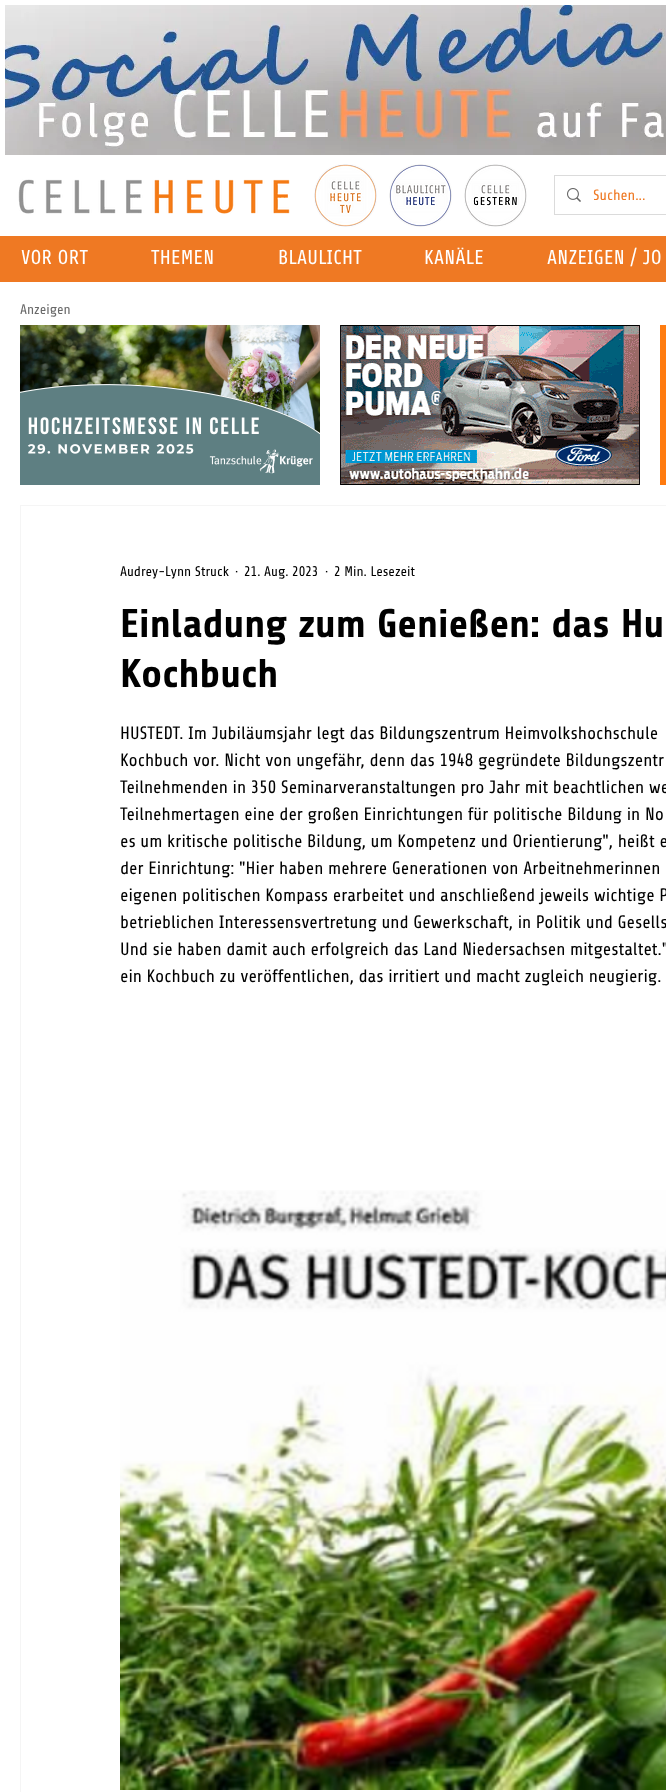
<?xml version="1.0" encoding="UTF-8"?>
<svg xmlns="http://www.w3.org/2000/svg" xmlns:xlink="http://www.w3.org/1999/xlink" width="666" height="1792">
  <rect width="100%" height="100%" fill="#ffffff" />
  <image x="5" y="5" width="661" height="150" xlink:href="image1.png" />
  <image x="18" y="179" width="272" height="35" xlink:href="image2.png" />
  <image x="314" y="164" width="63" height="63" xlink:href="image3.png" />
  <image x="389" y="164" width="63" height="63" xlink:href="image4.png" />
  <image x="464" y="164" width="63" height="63" xlink:href="image5.png" />
  <rect x="554.5" y="175.5" width="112" height="39" fill="none" stroke="#dbdbdb" />
  <image x="567" y="188" width="14" height="14" xlink:href="image6.png" />
  <rect y="236" width="666" height="46" fill="#ef7923" />
  <image x="20" y="325" width="300" height="160" xlink:href="image7.png" />
  <image x="340" y="325" width="300" height="160" xlink:href="image8.png" />
  <image x="660" y="325" width="6" height="160" xlink:href="image9.png" />
  <rect x="20.5" y="505.5" width="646" height="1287" fill="none" stroke="#f5f5f5" />
  <image x="120" y="1190" width="546" height="600" xlink:href="image10.png" />
  <text x="593" y="200" style="font-family: Share; font-size: 15px; fill: #ef7923">Suchen...</text>
  <text x="21" y="264" style="font-family: Share; font-size: 20px; letter-spacing: 0.25px; fill: #ffffff">VOR ORT</text>
  <text x="151" y="264" style="font-family: Share; font-size: 20px; letter-spacing: 0.25px; fill: #ffffff">THEMEN</text>
  <text x="278" y="264" style="font-family: Share; font-size: 20px; letter-spacing: 0.25px; fill: #ffffff">BLAULICHT</text>
  <text x="424" y="264" style="font-family: Share; font-size: 20px; letter-spacing: 0.25px; fill: #ffffff">KANÄLE</text>
  <text x="547" y="264" style="font-family: Share; font-size: 20px; letter-spacing: 0.25px; fill: #ffffff">ANZEIGEN / JO</text>
  <text x="20" y="314" style="font-family: Share; font-size: 14px; fill: #696969">Anzeigen</text>
  <text x="120" y="576" style="font-family: Share; font-size: 14px; fill: #000000">Audrey-Lynn Struck</text>
  <text x="235" y="576" style="font-family: Share; font-size: 14px; fill: #000000">·</text>
  <text x="244" y="576" style="font-family: Share; font-size: 14px; fill: #000000">21. Aug. 2023</text>
  <text x="325" y="576" style="font-family: Share; font-size: 14px; fill: #000000">·</text>
  <text x="334" y="576" style="font-family: Share; font-size: 14px; fill: #000000">2 Min. Lesezeit</text>
  <text x="120" y="637" style="font-family: Share; font-size: 40px; font-weight: bold; fill: #000000">Einladung zum Genießen: das Hu</text>
  <text x="120" y="687" style="font-family: Share; font-size: 40px; font-weight: bold; fill: #000000">Kochbuch</text>
  <text x="120" y="739" style="font-family: Share; font-size: 18px; fill: #000000">HUSTEDT. Im Jubiläumsjahr legt das Bildungszentrum Heimvolkshochschule</text>
  <text x="120" y="766" style="font-family: Share; font-size: 18px; fill: #000000">Kochbuch vor. Nicht von ungefähr, denn das 1948 gegründete Bildungszentr</text>
  <text x="120" y="793" style="font-family: Share; font-size: 18px; fill: #000000">Teilnehmenden in 350 Seminarveranstaltungen pro Jahr mit beachtlichen we</text>
  <text x="120" y="820" style="font-family: Share; font-size: 18px; fill: #000000">Teilnehmertagen eine der großen Einrichtungen für politische Bildung in No</text>
  <text x="120" y="847" style="font-family: Share; font-size: 18px; fill: #000000">es um kritische politische Bildung, um Kompetenz und Orientierung", heißt e</text>
  <text x="120" y="874" style="font-family: Share; font-size: 18px; fill: #000000">der Einrichtung: "Hier haben mehrere Generationen von Arbeitnehmerinnen</text>
  <text x="120" y="901" style="font-family: Share; font-size: 18px; fill: #000000">eigenen politischen Kompass erarbeitet und anschließend jeweils wichtige P</text>
  <text x="120" y="928" style="font-family: Share; font-size: 18px; fill: #000000">betrieblichen Interessensvertretung und Gewerkschaft, in Politik und Gesells</text>
  <text x="120" y="955" style="font-family: Share; font-size: 18px; fill: #000000">Und sie haben damit auch erfolgreich das Land Niedersachsen mitgestaltet."</text>
  <text x="120" y="982" style="font-family: Share; font-size: 18px; fill: #000000">ein Kochbuch zu veröffentlichen, das irritiert und macht zugleich neugierig.</text>
</svg>
